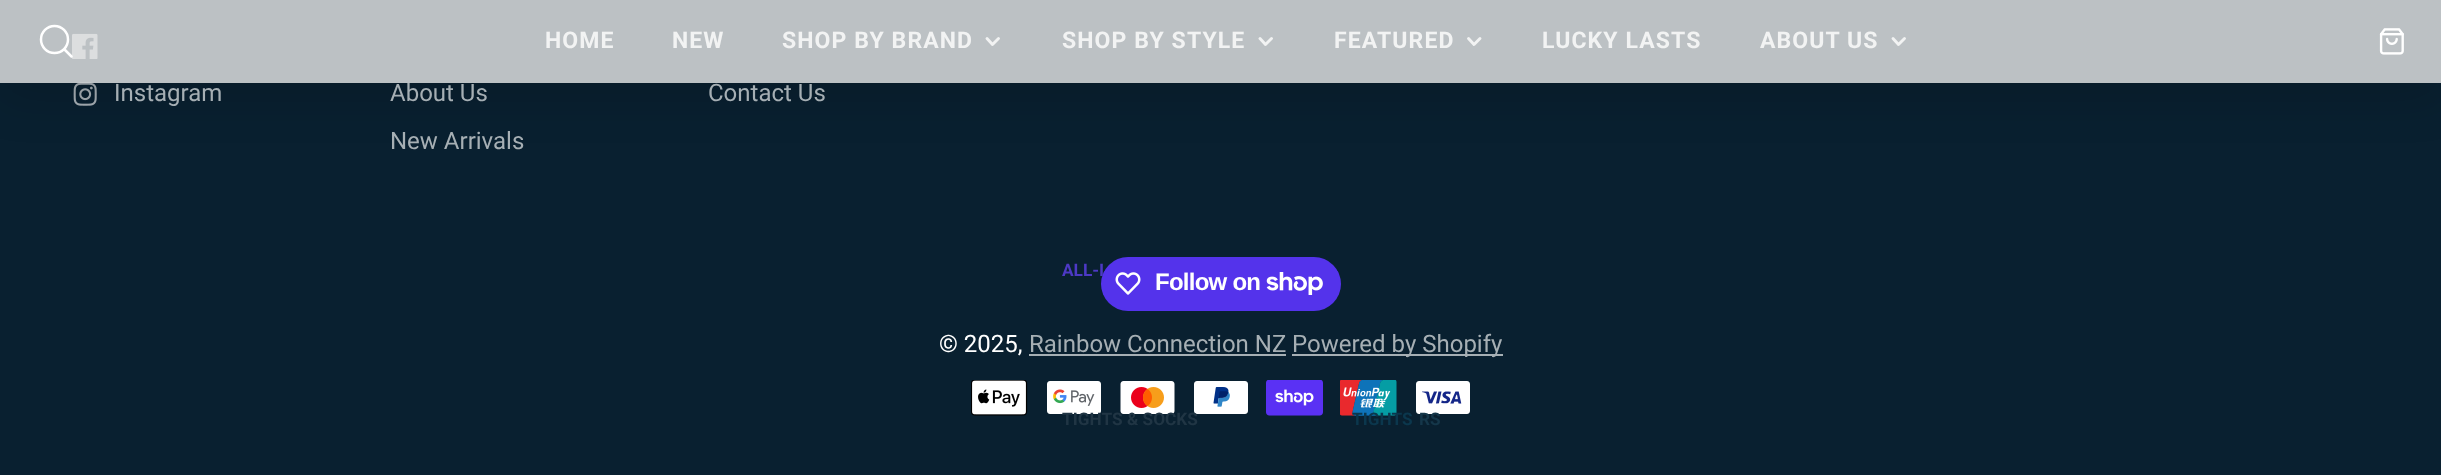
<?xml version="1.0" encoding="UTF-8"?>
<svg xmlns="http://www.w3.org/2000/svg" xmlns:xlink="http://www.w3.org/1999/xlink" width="2441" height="475">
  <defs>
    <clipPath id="clip1"><path d="M 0 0 h 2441 v 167 h -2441 z m 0 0 h 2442 v 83 h -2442 z" clip-rule="evenodd" /></clipPath>
  </defs>
  <rect width="100%" height="100%" fill="#092030" />
  <image x="72" y="33" width="26" height="26" xlink:href="image2.png" />
  <image x="73" y="82" width="24" height="24" xlink:href="image3.png" />
  <g clip-path="url(#clip1)">
    <rect y="15" width="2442" height="83" fill="#000000" fill-opacity="0.15" filter="blur(22.5px)" />
  </g>
  <rect width="2441" height="83" fill="#eaeaea" fill-opacity="0.8" />
  <circle cx="54.5" cy="39.5" r="13.5" fill="none" stroke="#ffffff" stroke-width="2.5" />
  <path d="M 71.5 56.5 l -7 -7" fill="none" stroke="#ffffff" stroke-width="2.5" stroke-linecap="round" stroke-linejoin="round" />
  <path d="M 987 38.5 l 5.5 6 l 6 -6" fill="none" stroke="#f2f3f3" stroke-width="2.9" stroke-linecap="round" stroke-linejoin="round" />
  <path d="M 1260 38.5 l 5.5 6 l 6 -6" fill="none" stroke="#f2f3f3" stroke-width="2.9" stroke-linecap="round" stroke-linejoin="round" />
  <path d="M 1468.5 38.5 l 5.5 6 l 6 -6" fill="none" stroke="#f2f3f3" stroke-width="2.9" stroke-linecap="round" stroke-linejoin="round" />
  <path d="M 1893 38.5 l 5.5 6 l 6 -6" fill="none" stroke="#f2f3f3" stroke-width="2.9" stroke-linecap="round" stroke-linejoin="round" />
  <image x="2379" y="28" width="25" height="27" xlink:href="image1.png" />
  <rect x="1101" y="257" width="240" height="54" rx="27" fill="#5433eb" />
  <image x="1115" y="272" width="26" height="23" xlink:href="image4.png" />
  <image x="1266" y="272" width="57" height="23" xlink:href="image5.png" />
  <rect x="1029" y="354" width="257" height="2" fill="#a6afb4" />
  <rect x="1292" y="354" width="211" height="2" fill="#a6afb4" />
  <image x="971" y="380" width="57" height="36" xlink:href="image6.png" />
  <image x="1047" y="381" width="54" height="33" xlink:href="image7.png" />
  <image x="1120" y="381" width="55" height="33" xlink:href="image8.png" />
  <image x="1194" y="381" width="54" height="33" xlink:href="image9.png" />
  <image x="1266" y="380" width="57" height="36" xlink:href="image10.png" />
  <image x="1340" y="380" width="57" height="36" xlink:href="image11.png" />
  <image x="1416" y="381" width="54" height="33" xlink:href="image12.png" />
  <text x="545" y="48" style="font-family: Roboto; font-size: 23px; font-weight: bold; letter-spacing: 1.1px; fill: #f2f3f3">HOME</text>
  <text x="672" y="48" style="font-family: Roboto; font-size: 23px; font-weight: bold; letter-spacing: 1.1px; fill: #f2f3f3">NEW</text>
  <text x="782" y="48" style="font-family: Roboto; font-size: 23px; font-weight: bold; letter-spacing: 1.1px; fill: #f2f3f3">SHOP BY BRAND</text>
  <text x="1062" y="48" style="font-family: Roboto; font-size: 23px; font-weight: bold; letter-spacing: 1.1px; fill: #f2f3f3">SHOP BY STYLE</text>
  <text x="1062" y="276" style="font-family: Roboto; font-size: 17.25px; font-weight: bold; fill: #4d39c5">ALL-I</text>
  <text x="1062" y="425" style="font-family: Roboto; font-size: 17.25px; font-weight: bold; fill: #203544">TIGHTS &amp; SOCKS</text>
  <text x="1352" y="425" style="font-family: Roboto; font-size: 17.25px; font-weight: bold; fill: #0b374d">TIGHTS</text>
  <text x="1419" y="425" style="font-family: Roboto; font-size: 17.25px; font-weight: bold; fill: #15374a">RS</text>
  <text x="1334" y="48" style="font-family: Roboto; font-size: 23px; font-weight: bold; letter-spacing: 1.1px; fill: #f2f3f3">FEATURED</text>
  <text x="1542" y="48" style="font-family: Roboto; font-size: 23px; font-weight: bold; letter-spacing: 1.1px; fill: #f2f3f3">LUCKY LASTS</text>
  <text x="1760" y="48" style="font-family: Roboto; font-size: 23px; font-weight: bold; letter-spacing: 1.1px; fill: #f2f3f3">ABOUT US</text>
  <text x="114" y="101" style="font-family: Roboto; font-size: 24px; fill: #a6afb4">Instagram</text>
  <text x="390" y="101" style="font-family: Roboto; font-size: 24px; fill: #a6afb4">About Us</text>
  <text x="390" y="149" style="font-family: Roboto; font-size: 24px; fill: #a6afb4">New Arrivals</text>
  <text x="708" y="101" style="font-family: Roboto; font-size: 24px; fill: #a6afb4">Contact Us</text>
  <text x="1155" y="290" style="font-family: Liberation Sans; font-size: 24px; font-weight: bold; letter-spacing: -0.75px; fill: #ffffff">Follow on</text>
  <text x="939" y="352" style="font-family: Roboto; font-size: 24px; fill: #ffffff">© 2025,</text>
  <text x="1029" y="352" style="font-family: Roboto; font-size: 24px; fill: #a6afb4">Rainbow Connection NZ</text>
  <text x="1292" y="352" style="font-family: Roboto; font-size: 24px; fill: #a6afb4">Powered by Shopify</text>
</svg>
